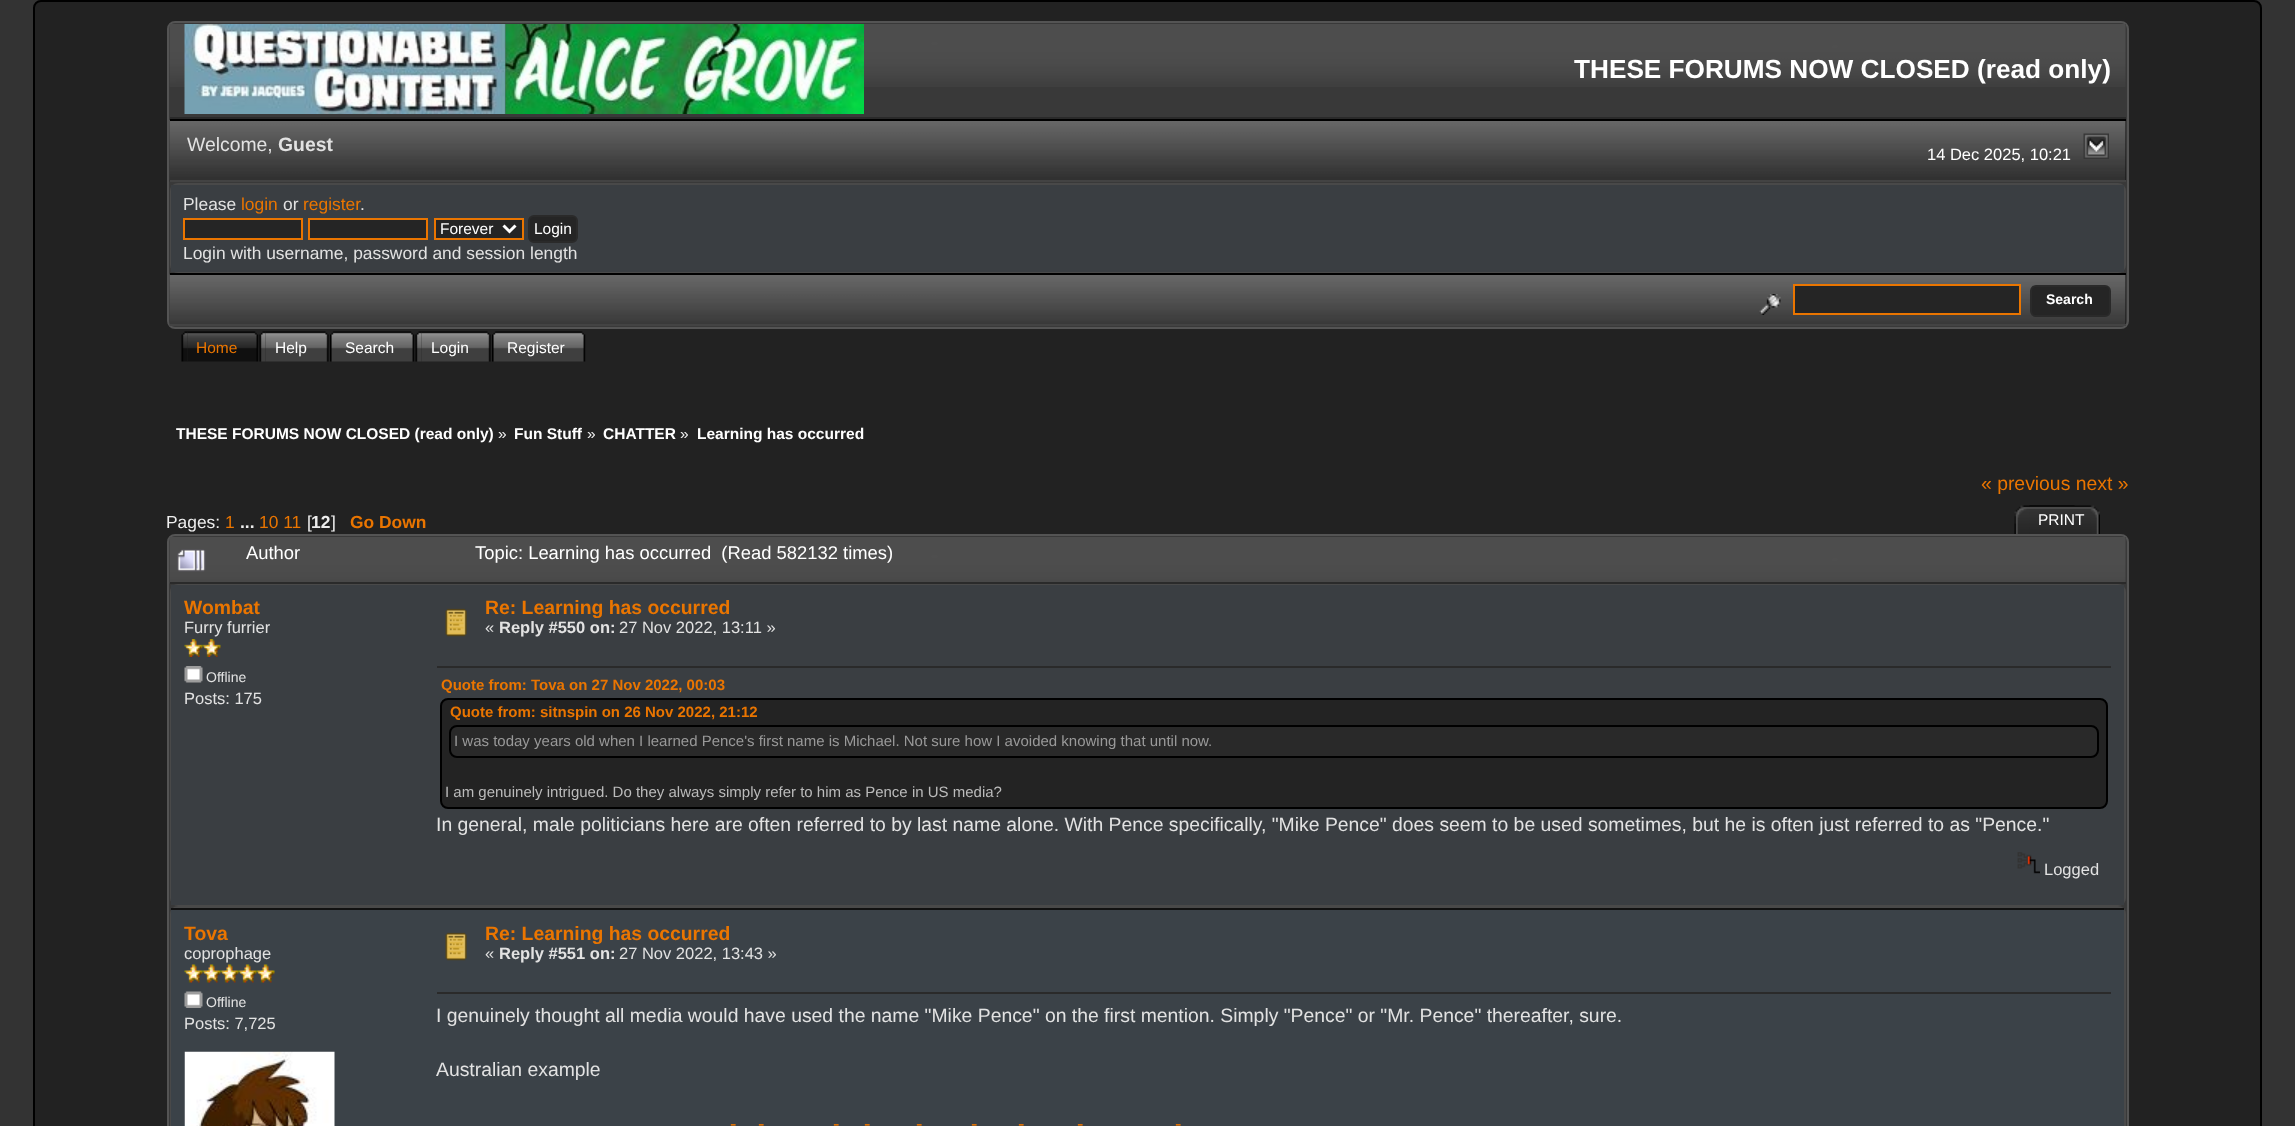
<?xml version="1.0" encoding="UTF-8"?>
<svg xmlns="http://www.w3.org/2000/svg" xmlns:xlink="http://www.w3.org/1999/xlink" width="2295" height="1126">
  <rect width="100%" height="100%" fill="#333333" />
  <rect x="34" y="1" width="2227" height="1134" rx="7" fill="#222222" stroke="#000000" stroke-width="2" />
  <rect x="168" y="22" width="1960" height="306" rx="7" fill="#393939" stroke="#545454" stroke-width="2" />
  <rect x="170" y="24" width="1956" height="2" fill="#3a3a3a" />
  <image x="169" y="24" width="1957" height="63" xlink:href="image1.png" />
  <rect x="170" y="117" width="1956" height="2" fill="#2a2a2a" />
  <image x="184" y="24" width="322" height="90" xlink:href="image2.png" />
  <image x="505" y="24" width="359" height="90" xlink:href="image3.png" />
  <rect x="2125" y="121" width="1" height="59" fill="#111111" />
  <image x="169" y="120" width="1957" height="62" xlink:href="image4.png" />
  <rect x="170" y="119" width="1956" height="2" fill="#000000" />
  <rect x="170" y="180" width="1956" height="2" fill="#434343" />
  <image x="2083" y="133" width="26" height="26" xlink:href="image5.png" />
  <rect x="170" y="183" width="1956" height="90" rx="8" fill="#494949" />
  <rect x="171" y="185" width="1953" height="87" fill="#3a3e42" />
  <rect x="184" y="219" width="118" height="20" fill="#252525" stroke="#ea7500" stroke-width="2" />
  <rect x="309" y="219" width="118" height="20" fill="#252525" stroke="#ea7500" stroke-width="2" />
  <rect x="435" y="219" width="88" height="20" fill="#252525" stroke="#ea7500" stroke-width="2" />
  <path d="M 503.5 225.5 l 6 6 l 6 -6" fill="none" stroke="#ffffff" stroke-width="3" />
  <rect x="529" y="216" width="48" height="26" rx="5" fill="#252525" stroke="#2a2a2a" stroke-width="2" />
  <rect x="2125" y="275" width="1" height="49" fill="#111111" />
  <image x="169" y="274" width="1957" height="52" xlink:href="image6.png" />
  <rect x="170" y="273" width="1956" height="2" fill="#000000" />
  <rect x="170" y="324" width="1956" height="2" fill="#434343" />
  <image x="1759" y="294" width="22" height="21" xlink:href="image7.png" />
  <rect x="1794" y="285" width="226" height="29" fill="#252525" stroke="#ea7500" stroke-width="2" />
  <rect x="2031" y="286" width="79" height="30" rx="5" fill="#252525" stroke="#2a2a2a" stroke-width="2" />
  <image x="181" y="331" width="7" height="31" xlink:href="image8.png" />
  <image x="187" y="331" width="72" height="31" xlink:href="image9.png" />
  <image x="259" y="331" width="7" height="31" xlink:href="image10.png" />
  <image x="265" y="331" width="64" height="31" xlink:href="image11.png" />
  <image x="330" y="331" width="6" height="31" xlink:href="image12.png" />
  <image x="336" y="331" width="79" height="31" xlink:href="image13.png" />
  <image x="415" y="331" width="7" height="31" xlink:href="image14.png" />
  <image x="421" y="331" width="70" height="31" xlink:href="image15.png" />
  <image x="492" y="331" width="6" height="31" xlink:href="image12.png" />
  <image x="498" y="331" width="88" height="31" xlink:href="image16.png" />
  <image x="2014" y="505" width="61" height="29" xlink:href="image17.png" />
  <image x="2029" y="505" width="71" height="29" xlink:href="image18.png" />
  <rect x="168" y="535" width="1960" height="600" rx="7" fill="#393939" stroke="#545454" stroke-width="2" />
  <rect x="2125" y="537" width="1" height="2" fill="#3a3a3a" />
  <image x="169" y="537" width="1957" height="47" xlink:href="image19.png" />
  <rect x="170" y="582" width="1956" height="2" fill="#2a2a2a" />
  <image x="177" y="549" width="29" height="23" xlink:href="image20.png" />
  <rect x="170" y="584" width="1956" height="322" rx="8" fill="#494949" />
  <rect x="171" y="585" width="1953" height="320" fill="#3a3e42" />
  <image x="184" y="639" width="19" height="18" xlink:href="image21.png" />
  <image x="202" y="639" width="19" height="18" xlink:href="image22.png" />
  <image x="184" y="666" width="19" height="17" xlink:href="image23.png" />
  <image x="445" y="608" width="22" height="29" xlink:href="image24.png" />
  <rect x="437" y="666" width="1674" height="2" fill="#2a2a2a" />
  <rect x="441" y="699" width="1666" height="109" rx="7" fill="#232323" stroke="#000000" stroke-width="2" />
  <rect x="450" y="726" width="1648" height="31" rx="7" fill="#292929" stroke="#000000" stroke-width="2" />
  <image x="2017" y="852" width="23" height="22" xlink:href="image25.png" />
  <rect x="170" y="906" width="1956" height="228" rx="8" fill="#494949" />
  <rect x="171" y="910" width="1953" height="216" fill="#3b4248" />
  <rect x="171" y="908" width="1953" height="2" fill="#111111" />
  <image x="184" y="964" width="19" height="19" xlink:href="image26.png" />
  <image x="202" y="964" width="19" height="19" xlink:href="image27.png" />
  <image x="220" y="964" width="19" height="19" xlink:href="image27.png" />
  <image x="238" y="964" width="19" height="19" xlink:href="image27.png" />
  <image x="256" y="964" width="19" height="19" xlink:href="image27.png" />
  <image x="184" y="991" width="19" height="17" xlink:href="image28.png" />
  <image x="184" y="1051" width="151" height="75" xlink:href="image29.png" />
  <image x="445" y="932" width="22" height="29" xlink:href="image30.png" />
  <rect x="437" y="992" width="1674" height="2" fill="#2a2a2a" />
  <text x="1574" y="78" style="font-family: Liberation Sans; font-size: 26.2px; font-weight: bold; fill: #ffffff">THESE FORUMS NOW CLOSED (read only)</text>
  <text x="187" y="151" style="font-family: Liberation Sans; font-size: 19.38px; fill: #e2e2e2">Welcome,</text>
  <text x="278" y="151" style="font-family: Liberation Sans; font-size: 19.38px; font-weight: bold; fill: #e2e2e2">Guest</text>
  <text x="1927" y="160" style="font-family: Liberation Sans; font-size: 16.5px; fill: #ffffff">14 Dec 2025, 10:21</text>
  <text x="183" y="210" style="font-family: Liberation Sans; font-size: 17.4px; fill: #e2e2e2">Please</text>
  <text x="241" y="210" style="font-family: Liberation Sans; font-size: 17.4px; fill: #ea7500">login</text>
  <text x="283" y="210" style="font-family: Liberation Sans; font-size: 17.4px; fill: #e2e2e2">or</text>
  <text x="303" y="210" style="font-family: Liberation Sans; font-size: 17.4px; fill: #ea7500">register</text>
  <text x="360" y="210" style="font-family: Liberation Sans; font-size: 17.4px; fill: #e2e2e2">.</text>
  <text x="440" y="234" style="font-family: Liberation Sans; font-size: 15.5px; fill: #ffffff">Forever</text>
  <text x="534" y="234" style="font-family: Liberation Sans; font-size: 15.5px; fill: #ffffff">Login</text>
  <text x="183" y="259" style="font-family: Liberation Sans; font-size: 17.4px; fill: #e2e2e2">Login with username, password and session length</text>
  <text x="2046" y="304" style="font-family: Liberation Sans; font-size: 14px; font-weight: bold; fill: #ffffff">Search</text>
  <text x="196" y="353" style="font-family: Liberation Sans; font-size: 15.5px; fill: #ea7500">Home</text>
  <text x="275" y="353" style="font-family: Liberation Sans; font-size: 15.5px; fill: #ffffff">Help</text>
  <text x="345" y="353" style="font-family: Liberation Sans; font-size: 15.5px; fill: #ffffff">Search</text>
  <text x="431" y="353" style="font-family: Liberation Sans; font-size: 15.5px; fill: #ffffff">Login</text>
  <text x="507" y="353" style="font-family: Liberation Sans; font-size: 15.5px; fill: #ffffff">Register</text>
  <text x="176" y="439" style="font-family: Liberation Sans; font-size: 15.5px; font-weight: bold; fill: #ffffff">THESE FORUMS NOW CLOSED (read only)</text>
  <text x="498" y="439" style="font-family: Liberation Sans; font-size: 15.5px; fill: #eeeeee">»</text>
  <text x="514" y="439" style="font-family: Liberation Sans; font-size: 15.5px; font-weight: bold; fill: #ffffff">Fun Stuff</text>
  <text x="587" y="439" style="font-family: Liberation Sans; font-size: 15.5px; fill: #eeeeee">»</text>
  <text x="603" y="439" style="font-family: Liberation Sans; font-size: 15.5px; font-weight: bold; fill: #ffffff">CHATTER</text>
  <text x="680" y="439" style="font-family: Liberation Sans; font-size: 15.5px; fill: #eeeeee">»</text>
  <text x="697" y="439" style="font-family: Liberation Sans; font-size: 15.5px; font-weight: bold; fill: #ffffff">Learning has occurred</text>
  <text x="1981" y="490" style="font-family: Liberation Sans; font-size: 19.38px; fill: #ea7500">« previous next »</text>
  <text x="166" y="528" style="font-family: Liberation Sans; font-size: 17.4px; fill: #eeeeee">Pages:</text>
  <text x="225" y="528" style="font-family: Liberation Sans; font-size: 17.4px; fill: #ea7500">1</text>
  <text x="240" y="528" style="font-family: Liberation Sans; font-size: 17.4px; font-weight: bold; fill: #eeeeee">...</text>
  <text x="259" y="528" style="font-family: Liberation Sans; font-size: 17.4px; fill: #ea7500">10 11</text>
  <text x="307" y="528" style="font-family: Liberation Sans; font-size: 17.4px; fill: #eeeeee">[</text>
  <text x="311" y="528" style="font-family: Liberation Sans; font-size: 17.4px; font-weight: bold; fill: #eeeeee">12</text>
  <text x="331" y="528" style="font-family: Liberation Sans; font-size: 17.4px; fill: #eeeeee">]</text>
  <text x="350" y="528" style="font-family: Liberation Sans; font-size: 17.4px; font-weight: bold; fill: #ea7500">Go Down</text>
  <text x="2038" y="525" style="font-family: Liberation Sans; font-size: 15.5px; fill: #ffffff">PRINT</text>
  <text x="246" y="559" style="font-family: Liberation Sans; font-size: 18.4px; fill: #ffffff">Author</text>
  <text x="475" y="559" style="font-family: Liberation Sans; font-size: 18.4px; fill: #ffffff" xml:space="preserve">Topic: Learning has occurred  (Read 582132 times)</text>
  <text x="184" y="614" style="font-family: Liberation Sans; font-size: 19.38px; font-weight: bold; fill: #ea7500">Wombat</text>
  <text x="184" y="633" style="font-family: Liberation Sans; font-size: 16.5px; fill: #e2e2e2">Furry furrier</text>
  <text x="206" y="682" style="font-family: Liberation Sans; font-size: 14px; fill: #e2e2e2">Offline</text>
  <text x="184" y="704" style="font-family: Liberation Sans; font-size: 16.5px; fill: #e2e2e2">Posts: 175</text>
  <text x="485" y="614" style="font-family: Liberation Sans; font-size: 19.38px; font-weight: bold; fill: #ea7500">Re: Learning has occurred</text>
  <text x="485" y="633" style="font-family: Liberation Sans; font-size: 16.5px; fill: #e2e2e2">«</text>
  <text x="499" y="633" style="font-family: Liberation Sans; font-size: 16.5px; font-weight: bold; fill: #e2e2e2">Reply #550 on:</text>
  <text x="619" y="633" style="font-family: Liberation Sans; font-size: 16.5px; fill: #e2e2e2">27 Nov 2022, 13:11 »</text>
  <text x="441" y="690" style="font-family: Liberation Sans; font-size: 15px; font-weight: bold; fill: #ea7500">Quote from: Tova on 27 Nov 2022, 00:03</text>
  <text x="450" y="717" style="font-family: Liberation Sans; font-size: 15px; font-weight: bold; fill: #ea7500">Quote from: sitnspin on 26 Nov 2022, 21:12</text>
  <text x="454" y="746" style="font-family: Liberation Sans; font-size: 15px; fill: #999999">I was today years old when I learned Pence's first name is Michael. Not sure how I avoided knowing that until now.</text>
  <text x="445" y="797" style="font-family: Liberation Sans; font-size: 15px; fill: #bbbbbb">I am genuinely intrigued. Do they always simply refer to him as Pence in US media?</text>
  <text x="436" y="831" style="font-family: Liberation Sans; font-size: 19.38px; fill: #e2e2e2">In general, male politicians here are often referred to by last name alone. With Pence specifically, "Mike Pence" does seem to be used sometimes, but he is often just referred to as "Pence."</text>
  <text x="2044" y="875" style="font-family: Liberation Sans; font-size: 16.5px; fill: #e2e2e2">Logged</text>
  <text x="184" y="940" style="font-family: Liberation Sans; font-size: 19.38px; font-weight: bold; fill: #ea7500">Tova</text>
  <text x="184" y="959" style="font-family: Liberation Sans; font-size: 16.5px; fill: #e2e2e2">coprophage</text>
  <text x="206" y="1007" style="font-family: Liberation Sans; font-size: 14px; fill: #e2e2e2">Offline</text>
  <text x="184" y="1029" style="font-family: Liberation Sans; font-size: 16.5px; fill: #e2e2e2">Posts: 7,725</text>
  <text x="485" y="940" style="font-family: Liberation Sans; font-size: 19.38px; font-weight: bold; fill: #ea7500">Re: Learning has occurred</text>
  <text x="485" y="959" style="font-family: Liberation Sans; font-size: 16.5px; fill: #e2e2e2">«</text>
  <text x="499" y="959" style="font-family: Liberation Sans; font-size: 16.5px; font-weight: bold; fill: #e2e2e2">Reply #551 on:</text>
  <text x="619" y="959" style="font-family: Liberation Sans; font-size: 16.5px; fill: #e2e2e2">27 Nov 2022, 13:43 »</text>
  <text x="436" y="1022" style="font-family: Liberation Sans; font-size: 19.38px; fill: #e2e2e2">I genuinely thought all media would have used the name "Mike Pence" on the first mention. Simply "Pence" or "Mr. Pence" thereafter, sure.</text>
  <text x="436" y="1076" style="font-family: Liberation Sans; font-size: 19.38px; fill: #e2e2e2">Australian example</text>
  <text x="730" y="1130" style="font-family: Liberation Sans; font-size: 19.38px; fill: #ea7500">-</text>
  <text x="758" y="1130" style="font-family: Liberation Sans; font-size: 19.38px; fill: #ea7500">-</text>
  <text x="833" y="1130" style="font-family: Liberation Sans; font-size: 19.38px; fill: #ea7500">-</text>
  <text x="864" y="1130" style="font-family: Liberation Sans; font-size: 19.38px; fill: #ea7500">-</text>
  <text x="916" y="1130" style="font-family: Liberation Sans; font-size: 19.38px; fill: #ea7500">-</text>
  <text x="971" y="1130" style="font-family: Liberation Sans; font-size: 19.38px; fill: #ea7500">-</text>
  <text x="1018" y="1130" style="font-family: Liberation Sans; font-size: 19.38px; fill: #ea7500">-</text>
  <text x="1077" y="1130" style="font-family: Liberation Sans; font-size: 19.38px; fill: #ea7500">-</text>
  <text x="1175" y="1130" style="font-family: Liberation Sans; font-size: 19.38px; fill: #ea7500">-</text>
</svg>
